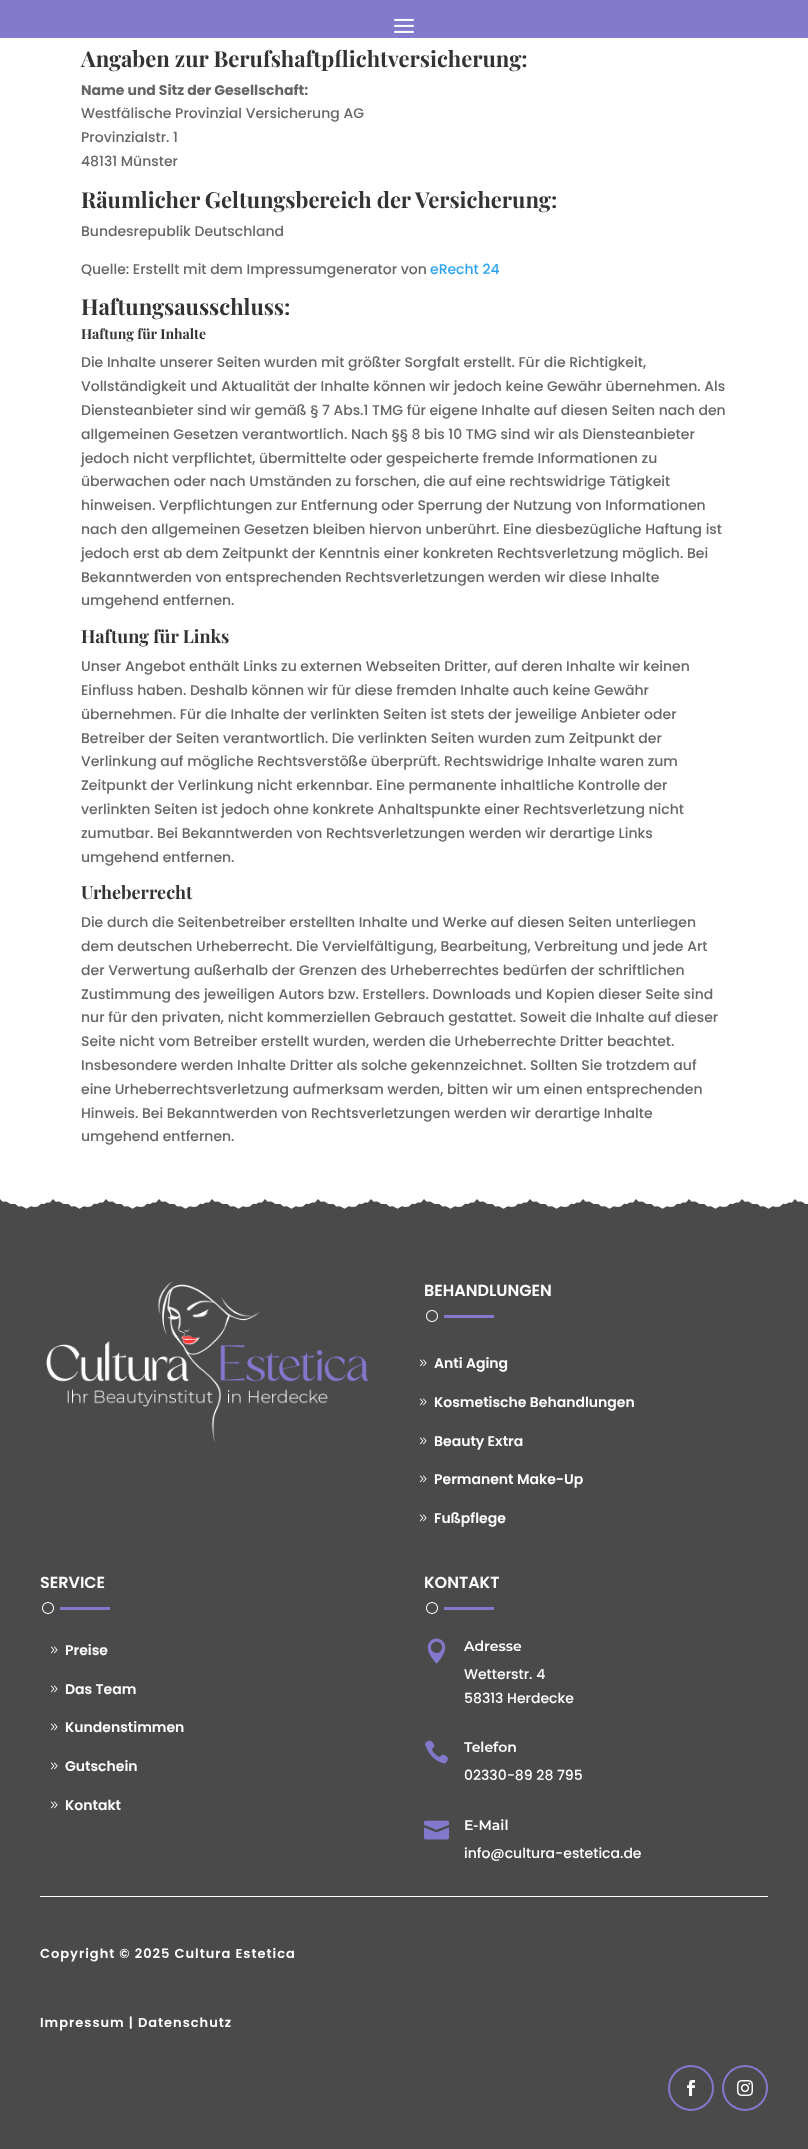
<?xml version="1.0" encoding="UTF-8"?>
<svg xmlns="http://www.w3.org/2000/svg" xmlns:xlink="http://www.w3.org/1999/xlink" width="808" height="2149">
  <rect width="100%" height="100%" fill="#ffffff" />
  <rect width="808" height="38" fill="#837acd" />
  <image x="394" y="18" width="20" height="15" xlink:href="image1.png" />
  <rect y="1199" width="808" height="950" fill="#4a4a4a" />
  <image x="0" y="1199" width="808" height="10" xlink:href="image2.png" />
  <image x="46" y="1281" width="323" height="162" xlink:href="image3.png" />
  <image x="426" y="1310" width="12" height="12" xlink:href="image4.png" />
  <rect x="444" y="1315" width="50" height="3" fill="#8379cc" />
  <image x="419" y="1359" width="8" height="8" xlink:href="image5.png" />
  <image x="419" y="1398" width="8" height="8" xlink:href="image5.png" />
  <image x="419" y="1437" width="8" height="8" xlink:href="image5.png" />
  <image x="419" y="1475" width="8" height="8" xlink:href="image5.png" />
  <image x="419" y="1514" width="8" height="8" xlink:href="image5.png" />
  <image x="42" y="1602" width="12" height="12" xlink:href="image4.png" />
  <rect x="60" y="1607" width="50" height="3" fill="#8379cc" />
  <image x="50" y="1646" width="8" height="8" xlink:href="image5.png" />
  <image x="50" y="1685" width="8" height="8" xlink:href="image5.png" />
  <image x="50" y="1723" width="8" height="8" xlink:href="image5.png" />
  <image x="50" y="1762" width="8" height="8" xlink:href="image5.png" />
  <image x="50" y="1801" width="8" height="8" xlink:href="image5.png" />
  <image x="426" y="1602" width="12" height="12" xlink:href="image4.png" />
  <rect x="444" y="1607" width="50" height="3" fill="#8379cc" />
  <image x="427" y="1638" width="19" height="26" xlink:href="image6.png" />
  <image x="425" y="1740" width="23" height="24" xlink:href="image7.png" />
  <image x="424" y="1820" width="25" height="20" xlink:href="image8.png" />
  <rect x="40" y="1896" width="728" height="1" fill="#ffffff" />
  <circle cx="691" cy="2088" r="22" fill="none" stroke="#8379cc" stroke-width="2" />
  <image x="687" y="2080" width="8" height="16" xlink:href="image9.png" />
  <circle cx="745" cy="2088" r="22" fill="none" stroke="#8379cc" stroke-width="2" />
  <image x="737" y="2080" width="16" height="16" xlink:href="image10.png" />
  <text x="81" y="67" style="font-family: Playfair Display; font-size: 22px; font-weight: bold; fill: #333333">Angaben zur Berufshaftpflichtversicherung:</text>
  <text x="81" y="95" style="font-family: Poppins; font-size: 14px; font-weight: bold; fill: #666666">Name und Sitz der Gesellschaft:</text>
  <text x="81" y="118" style="font-family: Poppins; font-size: 14px; font-weight: 500; fill: #666666">Westfälische Provinzial Versicherung AG</text>
  <text x="81" y="142" style="font-family: Poppins; font-size: 14px; font-weight: 500; fill: #666666">Provinzialstr. 1</text>
  <text x="81" y="166" style="font-family: Poppins; font-size: 14px; font-weight: 500; fill: #666666">48131 Münster</text>
  <text x="81" y="208" style="font-family: Playfair Display; font-size: 22px; font-weight: bold; fill: #333333">Räumlicher Geltungsbereich der Versicherung:</text>
  <text x="81" y="236" style="font-family: Poppins; font-size: 14px; font-weight: 500; fill: #666666">Bundesrepublik Deutschland</text>
  <text x="81" y="274" style="font-family: Poppins; font-size: 14px; font-weight: 500; fill: #666666">Quelle: Erstellt mit dem Impressumgenerator von</text>
  <text x="430" y="274" style="font-family: Poppins; font-size: 14px; font-weight: 500; fill: #2ea3f2">eRecht 24</text>
  <text x="81" y="315" style="font-family: Playfair Display; font-size: 22px; font-weight: bold; fill: #333333">Haftungsausschluss:</text>
  <text x="81" y="339" style="font-family: Playfair Display; font-size: 14px; font-weight: bold; fill: #333333">Haftung für Inhalte</text>
  <text x="81" y="367" style="font-family: Poppins; font-size: 14px; font-weight: 500; fill: #666666">Die Inhalte unserer Seiten wurden mit größter Sorgfalt erstellt. Für die Richtigkeit,</text>
  <text x="81" y="391" style="font-family: Poppins; font-size: 14px; font-weight: 500; fill: #666666">Vollständigkeit und Aktualität der Inhalte können wir jedoch keine Gewähr übernehmen. Als</text>
  <text x="81" y="415" style="font-family: Poppins; font-size: 14px; font-weight: 500; fill: #666666">Diensteanbieter sind wir gemäß § 7 Abs.1 TMG für eigene Inhalte auf diesen Seiten nach den</text>
  <text x="81" y="439" style="font-family: Poppins; font-size: 14px; font-weight: 500; fill: #666666">allgemeinen Gesetzen verantwortlich. Nach §§ 8 bis 10 TMG sind wir als Diensteanbieter</text>
  <text x="81" y="463" style="font-family: Poppins; font-size: 14px; font-weight: 500; fill: #666666">jedoch nicht verpflichtet, übermittelte oder gespeicherte fremde Informationen zu</text>
  <text x="81" y="486" style="font-family: Poppins; font-size: 14px; font-weight: 500; fill: #666666">überwachen oder nach Umständen zu forschen, die auf eine rechtswidrige Tätigkeit</text>
  <text x="81" y="510" style="font-family: Poppins; font-size: 14px; font-weight: 500; fill: #666666">hinweisen. Verpflichtungen zur Entfernung oder Sperrung der Nutzung von Informationen</text>
  <text x="81" y="534" style="font-family: Poppins; font-size: 14px; font-weight: 500; fill: #666666">nach den allgemeinen Gesetzen bleiben hiervon unberührt. Eine diesbezügliche Haftung ist</text>
  <text x="81" y="558" style="font-family: Poppins; font-size: 14px; font-weight: 500; fill: #666666">jedoch erst ab dem Zeitpunkt der Kenntnis einer konkreten Rechtsverletzung möglich. Bei</text>
  <text x="81" y="582" style="font-family: Poppins; font-size: 14px; font-weight: 500; fill: #666666">Bekanntwerden von entsprechenden Rechtsverletzungen werden wir diese Inhalte</text>
  <text x="81" y="605" style="font-family: Poppins; font-size: 14px; font-weight: 500; fill: #666666">umgehend entfernen.</text>
  <text x="81" y="643" style="font-family: Playfair Display; font-size: 18px; font-weight: bold; fill: #333333">Haftung für Links</text>
  <text x="81" y="671" style="font-family: Poppins; font-size: 14px; font-weight: 500; fill: #666666">Unser Angebot enthält Links zu externen Webseiten Dritter, auf deren Inhalte wir keinen</text>
  <text x="81" y="695" style="font-family: Poppins; font-size: 14px; font-weight: 500; fill: #666666">Einfluss haben. Deshalb können wir für diese fremden Inhalte auch keine Gewähr</text>
  <text x="81" y="719" style="font-family: Poppins; font-size: 14px; font-weight: 500; fill: #666666">übernehmen. Für die Inhalte der verlinkten Seiten ist stets der jeweilige Anbieter oder</text>
  <text x="81" y="743" style="font-family: Poppins; font-size: 14px; font-weight: 500; fill: #666666">Betreiber der Seiten verantwortlich. Die verlinkten Seiten wurden zum Zeitpunkt der</text>
  <text x="81" y="766" style="font-family: Poppins; font-size: 14px; font-weight: 500; fill: #666666">Verlinkung auf mögliche Rechtsverstöße überprüft. Rechtswidrige Inhalte waren zum</text>
  <text x="81" y="790" style="font-family: Poppins; font-size: 14px; font-weight: 500; fill: #666666">Zeitpunkt der Verlinkung nicht erkennbar. Eine permanente inhaltliche Kontrolle der</text>
  <text x="81" y="814" style="font-family: Poppins; font-size: 14px; font-weight: 500; fill: #666666">verlinkten Seiten ist jedoch ohne konkrete Anhaltspunkte einer Rechtsverletzung nicht</text>
  <text x="81" y="838" style="font-family: Poppins; font-size: 14px; font-weight: 500; fill: #666666">zumutbar. Bei Bekanntwerden von Rechtsverletzungen werden wir derartige Links</text>
  <text x="81" y="862" style="font-family: Poppins; font-size: 14px; font-weight: 500; fill: #666666">umgehend entfernen.</text>
  <text x="81" y="899" style="font-family: Playfair Display; font-size: 18px; font-weight: bold; fill: #333333">Urheberrecht</text>
  <text x="81" y="927" style="font-family: Poppins; font-size: 14px; font-weight: 500; fill: #666666">Die durch die Seitenbetreiber erstellten Inhalte und Werke auf diesen Seiten unterliegen</text>
  <text x="81" y="951" style="font-family: Poppins; font-size: 14px; font-weight: 500; fill: #666666">dem deutschen Urheberrecht. Die Vervielfältigung, Bearbeitung, Verbreitung und jede Art</text>
  <text x="81" y="975" style="font-family: Poppins; font-size: 14px; font-weight: 500; fill: #666666">der Verwertung außerhalb der Grenzen des Urheberrechtes bedürfen der schriftlichen</text>
  <text x="81" y="999" style="font-family: Poppins; font-size: 14px; font-weight: 500; fill: #666666">Zustimmung des jeweiligen Autors bzw. Erstellers. Downloads und Kopien dieser Seite sind</text>
  <text x="81" y="1022" style="font-family: Poppins; font-size: 14px; font-weight: 500; fill: #666666">nur für den privaten, nicht kommerziellen Gebrauch gestattet. Soweit die Inhalte auf dieser</text>
  <text x="81" y="1046" style="font-family: Poppins; font-size: 14px; font-weight: 500; fill: #666666">Seite nicht vom Betreiber erstellt wurden, werden die Urheberrechte Dritter beachtet.</text>
  <text x="81" y="1070" style="font-family: Poppins; font-size: 14px; font-weight: 500; fill: #666666">Insbesondere werden Inhalte Dritter als solche gekennzeichnet. Sollten Sie trotzdem auf</text>
  <text x="81" y="1094" style="font-family: Poppins; font-size: 14px; font-weight: 500; fill: #666666">eine Urheberrechtsverletzung aufmerksam werden, bitten wir um einen entsprechenden</text>
  <text x="81" y="1118" style="font-family: Poppins; font-size: 14px; font-weight: 500; fill: #666666">Hinweis. Bei Bekanntwerden von Rechtsverletzungen werden wir derartige Inhalte</text>
  <text x="81" y="1141" style="font-family: Poppins; font-size: 14px; font-weight: 500; fill: #666666">umgehend entfernen.</text>
  <text x="424" y="1296" style="font-family: Poppins; font-size: 16px; font-weight: 600; fill: #ffffff">BEHANDLUNGEN</text>
  <text x="434" y="1368" style="font-family: Poppins; font-size: 14px; font-weight: 600; fill: #ffffff">Anti Aging</text>
  <text x="434" y="1407" style="font-family: Poppins; font-size: 14px; font-weight: 600; fill: #ffffff">Kosmetische Behandlungen</text>
  <text x="434" y="1446" style="font-family: Poppins; font-size: 14px; font-weight: 600; fill: #ffffff">Beauty Extra</text>
  <text x="434" y="1484" style="font-family: Poppins; font-size: 14px; font-weight: 600; fill: #ffffff">Permanent Make-Up</text>
  <text x="434" y="1523" style="font-family: Poppins; font-size: 14px; font-weight: 600; fill: #ffffff">Fußpflege</text>
  <text x="40" y="1588" style="font-family: Poppins; font-size: 16px; font-weight: 600; fill: #ffffff">SERVICE</text>
  <text x="65" y="1655" style="font-family: Poppins; font-size: 14px; font-weight: 600; fill: #ffffff">Preise</text>
  <text x="65" y="1694" style="font-family: Poppins; font-size: 14px; font-weight: 600; fill: #ffffff">Das Team</text>
  <text x="65" y="1732" style="font-family: Poppins; font-size: 14px; font-weight: 600; fill: #ffffff">Kundenstimmen</text>
  <text x="65" y="1771" style="font-family: Poppins; font-size: 14px; font-weight: 600; fill: #ffffff">Gutschein</text>
  <text x="65" y="1810" style="font-family: Poppins; font-size: 14px; font-weight: 600; fill: #ffffff">Kontakt</text>
  <text x="424" y="1588" style="font-family: Poppins; font-size: 16px; font-weight: 600; fill: #ffffff">KONTAKT</text>
  <text x="464" y="1651" style="font-family: Montserrat; font-size: 14px; font-weight: 600; fill: #ffffff">Adresse</text>
  <text x="464" y="1679" style="font-family: Poppins; font-size: 14px; font-weight: 500; fill: #ffffff">Wetterstr. 4</text>
  <text x="464" y="1703" style="font-family: Poppins; font-size: 14px; font-weight: 500; fill: #ffffff">58313 Herdecke</text>
  <text x="464" y="1752" style="font-family: Montserrat; font-size: 14px; font-weight: 600; fill: #ffffff">Telefon</text>
  <text x="464" y="1780" style="font-family: Poppins; font-size: 14px; font-weight: 500; fill: #ffffff">02330-89 28 795</text>
  <text x="464" y="1830" style="font-family: Montserrat; font-size: 14px; font-weight: 600; fill: #ffffff">E-Mail</text>
  <text x="464" y="1858" style="font-family: Poppins; font-size: 14px; font-weight: 500; fill: #ffffff">info@cultura-estetica.de</text>
  <text x="40" y="1958" style="font-family: Poppins; font-size: 13px; font-weight: 600; letter-spacing: 1px; fill: #ffffff">Copyright © 2025 Cultura Estetica</text>
  <text x="40" y="2027" style="font-family: Poppins; font-size: 13px; font-weight: 600; letter-spacing: 1px; fill: #ffffff">Impressum | Datenschutz</text>
</svg>
